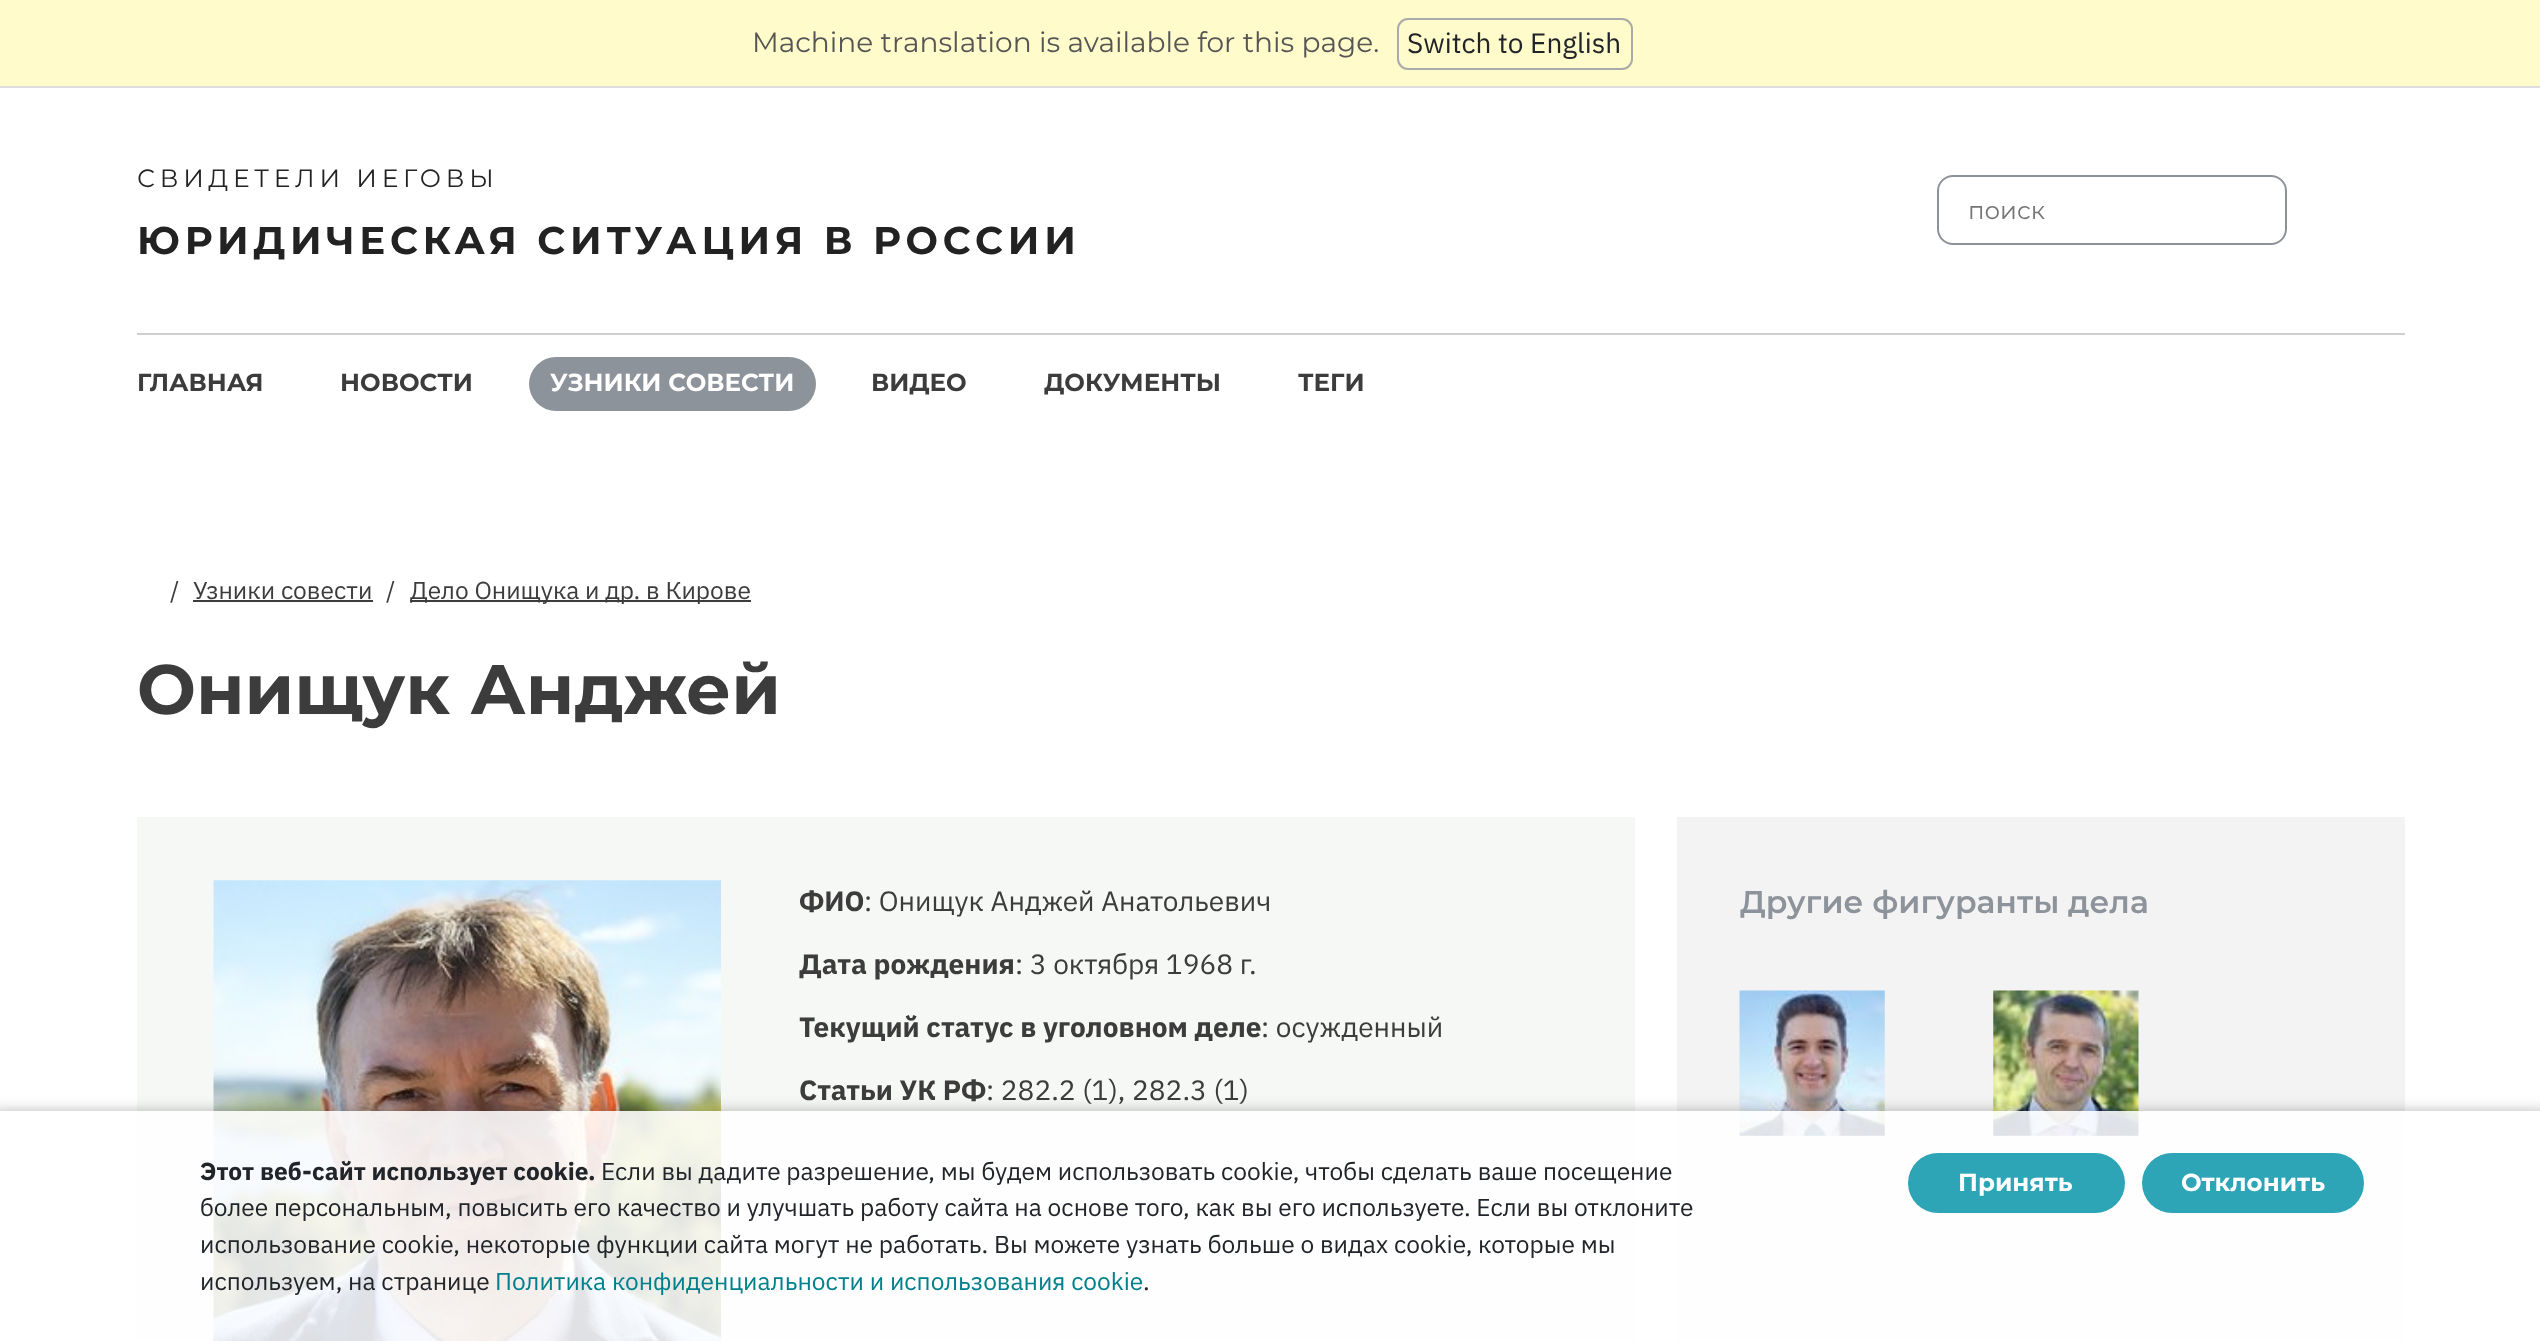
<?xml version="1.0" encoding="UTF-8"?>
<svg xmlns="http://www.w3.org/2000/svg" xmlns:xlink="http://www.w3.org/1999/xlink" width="2540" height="1341">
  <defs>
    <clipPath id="clip1"><path d="M 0 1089 h 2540 v 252 h -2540 z m -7 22 h 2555 v 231 h -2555 z" clip-rule="evenodd" /></clipPath>
  </defs>
  <rect width="100%" height="100%" fill="#ffffff" />
  <rect width="2540" height="86" fill="#fffbcb" />
  <rect y="86" width="2540" height="2" fill="#dddddd" />
  <rect x="1398" y="19" width="234" height="50" rx="10" fill="none" stroke="#aaaaaa" stroke-width="2" />
  <rect x="1938" y="176" width="348" height="68" rx="15" fill="none" stroke="#8d939a" stroke-width="2" />
  <rect x="137" y="333" width="2268" height="2" fill="#cfcfcf" />
  <rect x="529" y="357" width="287" height="54" rx="27" fill="#8d939a" />
  <rect x="193" y="600" width="180" height="2" fill="#3c3c3c" />
  <rect x="410" y="600" width="341" height="2" fill="#3c3c3c" />
  <rect x="137" y="817" width="1498" height="524" fill="#f6f8f5" />
  <image x="213" y="880" width="508" height="461" xlink:href="image1.png" />
  <path d="M 1097 1171.5 h 72" fill="none" stroke="#aaaaaa" stroke-width="1.8" stroke-dasharray="1.75 1.75" />
  <path d="M 1267 1171.5 h 122.5" fill="none" stroke="#aaaaaa" stroke-width="1.8" stroke-dasharray="1.75 1.75" />
  <rect x="1677" y="817" width="728" height="524" fill="#f3f3f3" />
  <image x="1739" y="990" width="146" height="146" xlink:href="image2.png" />
  <image x="1993" y="990" width="146" height="146" xlink:href="image3.png" />
  <g clip-path="url(#clip1)">
    <rect x="-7" y="1111" width="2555" height="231" fill="#000000" fill-opacity="0.27" filter="blur(7px)" />
  </g>
  <rect y="1111" width="2540" height="230" fill="#ffffff" fill-opacity="0.87" />
  <rect x="1908" y="1153" width="217" height="60" rx="30" fill="#2da5b6" />
  <rect x="2142" y="1153" width="222" height="60" rx="30" fill="#2da5b6" />
  <text x="752" y="52" style="font-family: Montserrat; font-size: 28px; fill: #555555">Machine translation is available for this page.</text>
  <text x="1407" y="53" style="font-family: IBM Plex Sans; font-size: 28px; fill: #212529">Switch to English</text>
  <text x="137" y="187" style="font-family: Montserrat; font-size: 25px; letter-spacing: 4.8px; fill: #222222">СВИДЕТЕЛИ ИЕГОВЫ</text>
  <text x="137" y="254" style="font-family: Montserrat; font-size: 38.5px; font-weight: bold; letter-spacing: 4.8px; fill: #222222">ЮРИДИЧЕСКАЯ СИТУАЦИЯ В РОССИИ</text>
  <text x="1968" y="219" style="font-family: Montserrat; font-size: 24.5px; fill: #757575">поиск</text>
  <text x="137" y="391" style="font-family: Montserrat; font-size: 24.5px; font-weight: bold; fill: #3c3c3c">ГЛАВНАЯ</text>
  <text x="340" y="391" style="font-family: Montserrat; font-size: 24.5px; font-weight: bold; fill: #3c3c3c">НОВОСТИ</text>
  <text x="550" y="391" style="font-family: Montserrat; font-size: 24.5px; font-weight: bold; fill: #ffffff">УЗНИКИ СОВЕСТИ</text>
  <text x="871" y="391" style="font-family: Montserrat; font-size: 24.5px; font-weight: bold; fill: #3c3c3c">ВИДЕО</text>
  <text x="1044" y="391" style="font-family: Montserrat; font-size: 24.5px; font-weight: bold; fill: #3c3c3c">ДОКУМЕНТЫ</text>
  <text x="1298" y="391" style="font-family: Montserrat; font-size: 24.5px; font-weight: bold; fill: #3c3c3c">ТЕГИ</text>
  <text x="170" y="599" style="font-family: IBM Plex Sans; font-size: 24.5px; fill: #3c3c3c">/</text>
  <text x="193" y="599" style="font-family: IBM Plex Sans; font-size: 24.5px; fill: #3c3c3c">Узники совести</text>
  <text x="386" y="599" style="font-family: IBM Plex Sans; font-size: 24.5px; fill: #3c3c3c">/</text>
  <text x="410" y="599" style="font-family: IBM Plex Sans; font-size: 24.5px; fill: #3c3c3c">Дело Онищука и др. в Кирове</text>
  <text x="137" y="714" style="font-family: Montserrat; font-size: 70px; font-weight: bold; fill: #3c3c3c">Онищук Анджей</text>
  <text x="799" y="911" style="font-family: IBM Plex Sans; font-size: 28px; font-weight: bold; fill: #3c3c3c">ФИО</text>
  <text x="864" y="911" style="font-family: IBM Plex Sans; font-size: 28px; fill: #3c3c3c">: Онищук Анджей Анатольевич</text>
  <text x="799" y="974" style="font-family: IBM Plex Sans; font-size: 28px; font-weight: bold; fill: #3c3c3c">Дата рождения</text>
  <text x="1015" y="974" style="font-family: IBM Plex Sans; font-size: 28px; fill: #3c3c3c">: 3 октября 1968 г.</text>
  <text x="799" y="1037" style="font-family: IBM Plex Sans; font-size: 28px; font-weight: bold; fill: #3c3c3c">Текущий статус в уголовном деле</text>
  <text x="1261" y="1037" style="font-family: IBM Plex Sans; font-size: 28px; fill: #3c3c3c">: осужденный</text>
  <text x="799" y="1100" style="font-family: IBM Plex Sans; font-size: 28px; font-weight: bold; fill: #3c3c3c">Статьи УК РФ</text>
  <text x="986" y="1100" style="font-family: IBM Plex Sans; font-size: 28px; fill: #3c3c3c">: 282.2 (1), 282.3 (1)</text>
  <text x="1740" y="913" style="font-family: Montserrat; font-size: 31.5px; font-weight: 600; fill: #8d939a">Другие фигуранты дела</text>
  <text x="200" y="1180" style="font-family: IBM Plex Sans; font-size: 24.5px; font-weight: bold; fill: #212529">Этот веб-сайт использует cookie.</text>
  <text x="601" y="1180" style="font-family: IBM Plex Sans; font-size: 24.5px; fill: #212529">Если вы дадите разрешение, мы будем использовать cookie, чтобы сделать ваше посещение</text>
  <text x="200" y="1216" style="font-family: IBM Plex Sans; font-size: 24.5px; fill: #212529">более персональным, повысить его качество и улучшать работу сайта на основе того, как вы его используете. Если вы отклоните</text>
  <text x="200" y="1253" style="font-family: IBM Plex Sans; font-size: 24.5px; fill: #212529">использование cookie, некоторые функции сайта могут не работать. Вы можете узнать больше о видах cookie, которые мы</text>
  <text x="200" y="1290" style="font-family: IBM Plex Sans; font-size: 24.5px; fill: #212529">используем, на странице</text>
  <text x="495" y="1290" style="font-family: IBM Plex Sans; font-size: 24.5px; fill: #00808d">Политика конфиденциальности и использования cookie</text>
  <text x="1143" y="1290" style="font-family: IBM Plex Sans; font-size: 24.5px; fill: #212529">.</text>
  <text x="1958" y="1191" style="font-family: Montserrat; font-size: 24.5px; font-weight: bold; fill: #ffffff">Принять</text>
  <text x="2181" y="1191" style="font-family: Montserrat; font-size: 24.5px; font-weight: bold; fill: #ffffff">Отклонить</text>
</svg>
